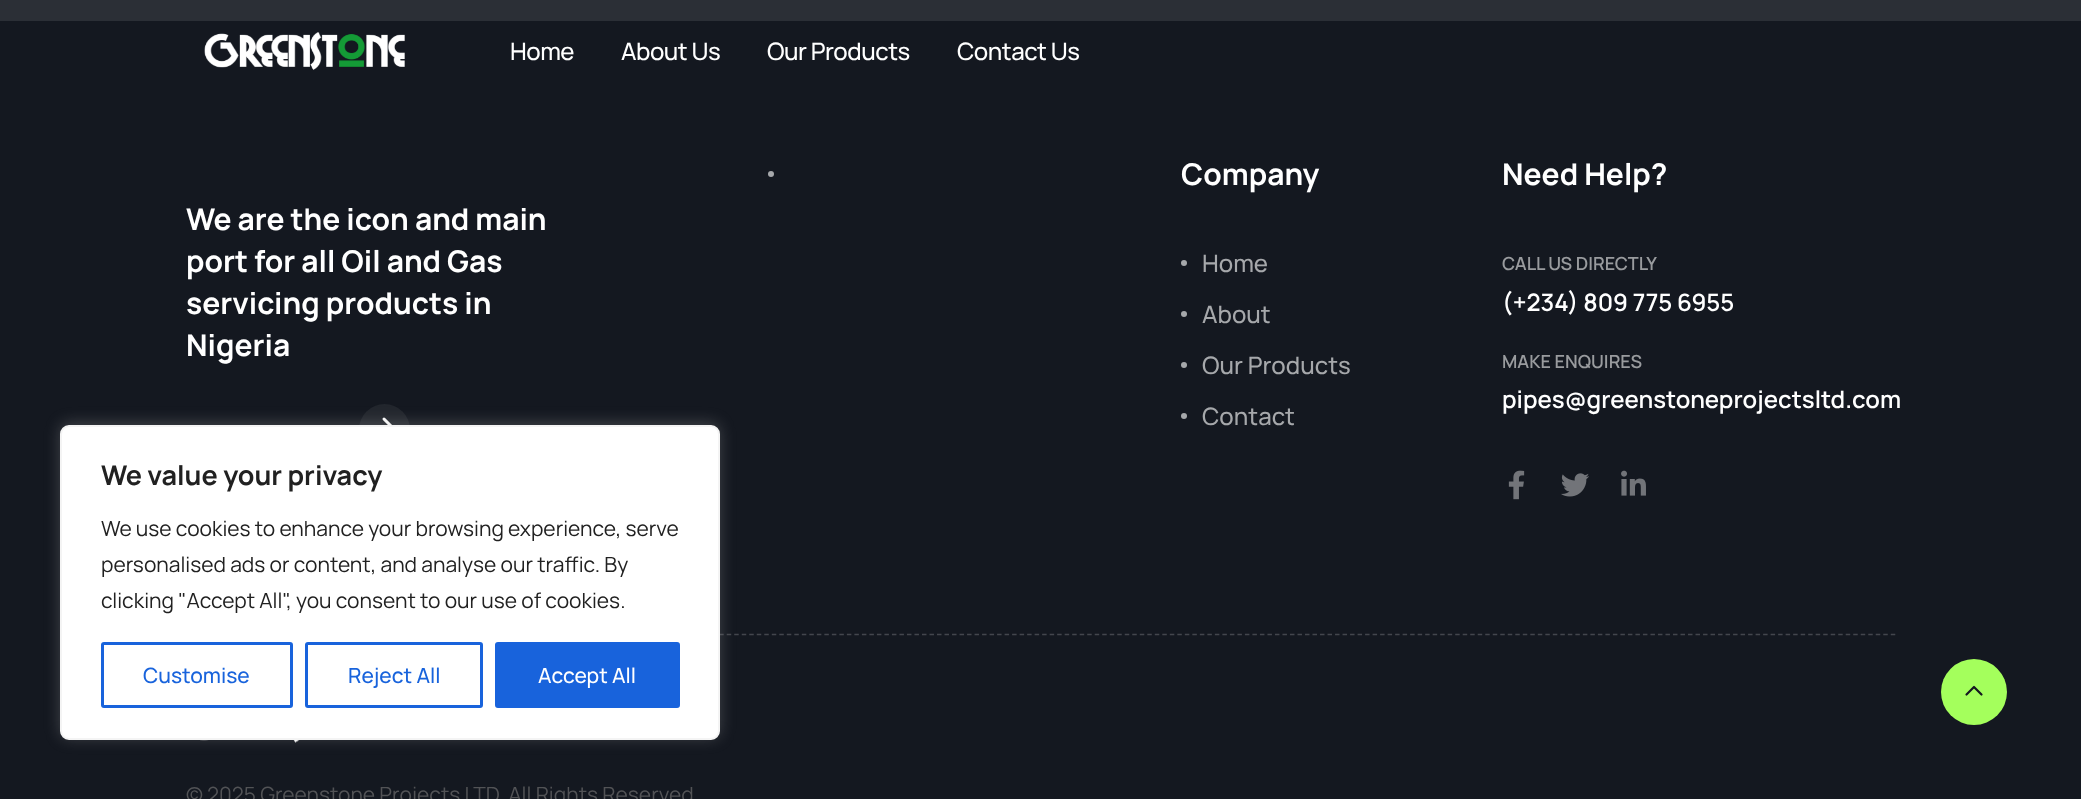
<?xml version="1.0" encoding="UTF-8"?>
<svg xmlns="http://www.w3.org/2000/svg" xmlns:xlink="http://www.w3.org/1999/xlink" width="2081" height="799">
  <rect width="100%" height="100%" fill="#2b2f36" />
  <rect y="21" width="2081" height="778" fill="#141820" />
  <image x="204" y="32" width="201" height="38" xlink:href="image1.png" />
  <circle cx="771" cy="174" r="3" fill="#a6a8ab" />
  <circle cx="1184" cy="263" r="3" fill="#a6a8ab" />
  <circle cx="1184" cy="314" r="3" fill="#a6a8ab" />
  <circle cx="1184" cy="365" r="3" fill="#a6a8ab" />
  <circle cx="1184" cy="416" r="3" fill="#a6a8ab" />
  <image x="1508" y="470" width="17" height="30" xlink:href="image2.png" />
  <image x="1561" y="473" width="28" height="24" xlink:href="image3.png" />
  <image x="1621" y="470" width="25" height="26" xlink:href="image4.png" />
  <circle cx="384.5" cy="429.5" r="25.5" fill="#22262d" />
  <path d="M 384 419 l 10.5 10.5 l -10.5 10.5" fill="none" stroke="#ffffff" stroke-width="3" stroke-linecap="round" stroke-linejoin="round" />
  <path d="M 186 634.5 h 1710" fill="none" stroke="#43464d" stroke-width="1.5" stroke-dasharray="4.5 3.01" />
  <image x="200" y="740" width="100" height="3" xlink:href="image5.png" />
  <rect x="60" y="423" width="660" height="315" rx="9" fill="#acabab" fill-opacity="0.3" filter="blur(7.5px)" />
  <rect x="61" y="426" width="658" height="313" rx="8" fill="#ffffff" stroke="#f4f4f4" stroke-width="2" />
  <rect x="102.5" y="643.5" width="189" height="63" rx="1.5" fill="none" stroke="#1863dc" stroke-width="3" />
  <rect x="306.5" y="643.5" width="175" height="63" rx="1.5" fill="none" stroke="#1863dc" stroke-width="3" />
  <rect x="496.5" y="643.5" width="182" height="63" rx="1.5" fill="#1863dc" stroke="#1863dc" stroke-width="3" />
  <circle cx="1974" cy="692" r="33" fill="#a4ff5c" />
  <path d="M 1981.5 694.5 l -7.5 -7.5 l -7.5 7.5" fill="none" stroke="#141820" stroke-width="2.2" stroke-linecap="round" stroke-linejoin="round" />
  <text x="510" y="60" style="font-family: Manrope; font-size: 24px; font-weight: 500; letter-spacing: -0.5px; fill: #ffffff">Home</text>
  <text x="621" y="60" style="font-family: Manrope; font-size: 24px; font-weight: 500; letter-spacing: -0.5px; fill: #ffffff">About Us</text>
  <text x="767" y="60" style="font-family: Manrope; font-size: 24px; font-weight: 500; letter-spacing: -0.5px; fill: #ffffff">Our Products</text>
  <text x="957" y="60" style="font-family: Manrope; font-size: 24px; font-weight: 500; letter-spacing: -0.5px; fill: #ffffff">Contact Us</text>
  <text x="1181" y="185" style="font-family: Manrope; font-size: 30px; font-weight: bold; fill: #ffffff">Company</text>
  <text x="1202" y="272" style="font-family: Manrope; font-size: 24px; font-weight: 500; fill: #a6a8ab">Home</text>
  <text x="1202" y="323" style="font-family: Manrope; font-size: 24px; font-weight: 500; fill: #a6a8ab">About</text>
  <text x="1202" y="374" style="font-family: Manrope; font-size: 24px; font-weight: 500; fill: #a6a8ab">Our Products</text>
  <text x="1202" y="425" style="font-family: Manrope; font-size: 24px; font-weight: 500; fill: #a6a8ab">Contact</text>
  <text x="1502" y="185" style="font-family: Manrope; font-size: 30px; font-weight: bold; fill: #ffffff">Need Help?</text>
  <text x="1502" y="270" style="font-family: Manrope; font-size: 18px; font-weight: 600; fill: #999b9e">CALL US DIRECTLY</text>
  <text x="1502" y="311" style="font-family: Manrope; font-size: 24px; font-weight: 600; fill: #ffffff">(+234) 809 775 6955</text>
  <text x="1502" y="368" style="font-family: Manrope; font-size: 18px; font-weight: 600; fill: #999b9e">MAKE ENQUIRES</text>
  <text x="1502" y="408" style="font-family: Manrope; font-size: 24px; font-weight: 600; fill: #ffffff">pipes@greenstoneprojectsltd.com</text>
  <text x="186" y="230" style="font-family: Manrope; font-size: 30px; font-weight: bold; fill: #ffffff">We are the icon and main</text>
  <text x="186" y="272" style="font-family: Manrope; font-size: 30px; font-weight: bold; fill: #ffffff">port for all Oil and Gas</text>
  <text x="186" y="314" style="font-family: Manrope; font-size: 30px; font-weight: bold; fill: #ffffff">servicing products in</text>
  <text x="186" y="356" style="font-family: Manrope; font-size: 30px; font-weight: bold; fill: #ffffff">Nigeria</text>
  <text x="186" y="802" style="font-family: Manrope; font-size: 21px; fill: #525356">© 2025 Greenstone Projects LTD. All Rights Reserved</text>
  <text x="101" y="485" style="font-family: Manrope; font-size: 27px; font-weight: bold; fill: #212121">We value your privacy</text>
  <text x="101" y="536" style="font-family: Manrope; font-size: 21px; fill: #212121">We use cookies to enhance your browsing experience, serve</text>
  <text x="101" y="572" style="font-family: Manrope; font-size: 21px; fill: #212121">personalised ads or content, and analyse our traffic. By</text>
  <text x="101" y="608" style="font-family: Manrope; font-size: 21px; fill: #212121">clicking "Accept All", you consent to our use of cookies.</text>
  <text x="143" y="683" style="font-family: Manrope; font-size: 21px; font-weight: 500; fill: #1863dc">Customise</text>
  <text x="348" y="683" style="font-family: Manrope; font-size: 21px; font-weight: 500; fill: #1863dc">Reject All</text>
  <text x="538" y="683" style="font-family: Manrope; font-size: 21px; font-weight: 500; fill: #ffffff">Accept All</text>
</svg>
